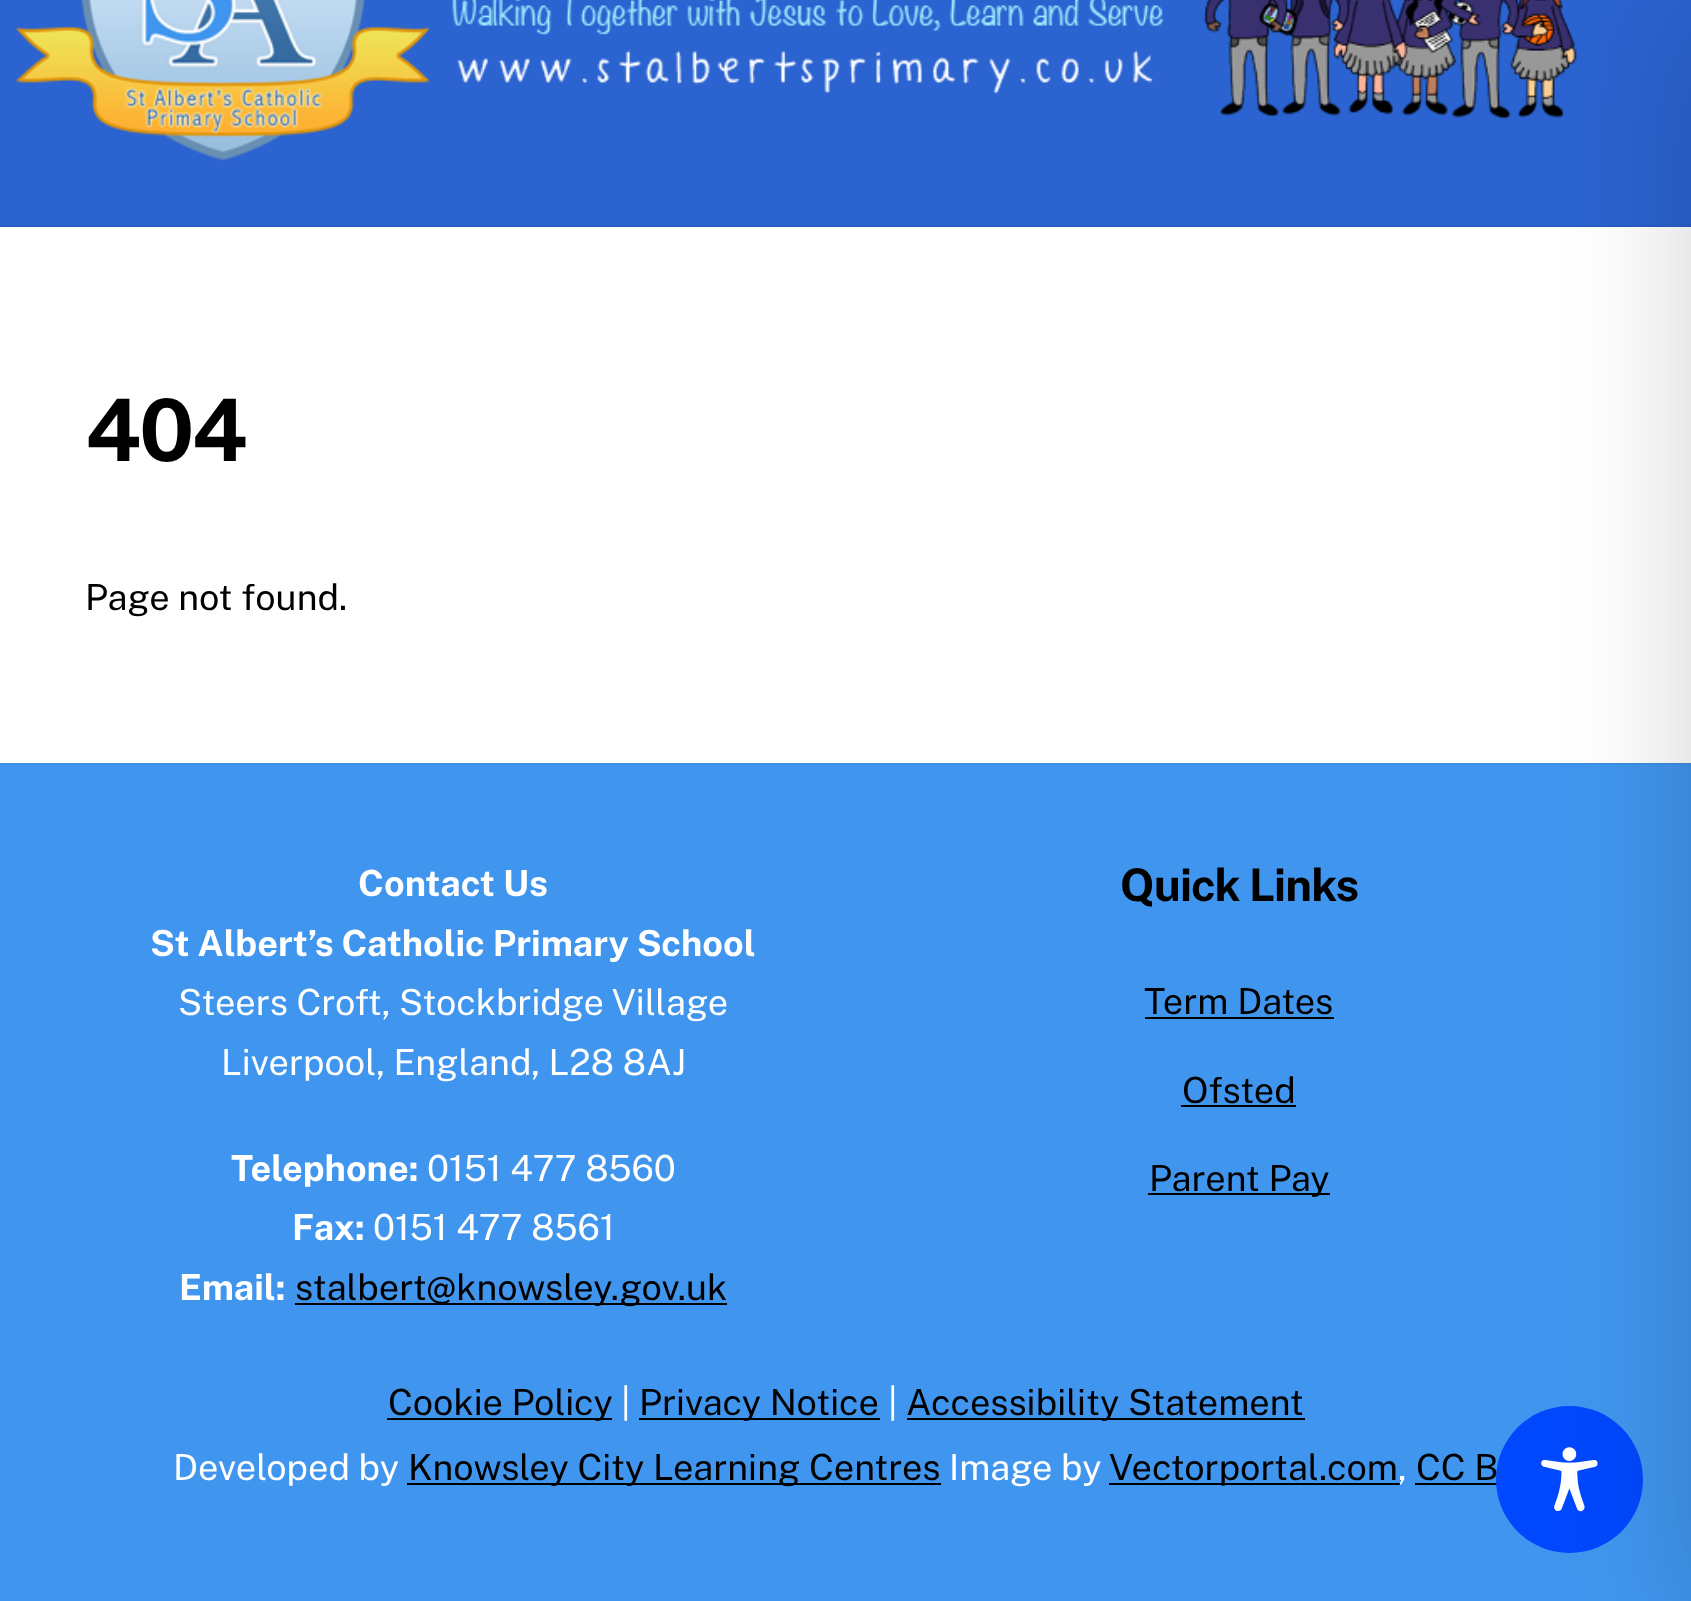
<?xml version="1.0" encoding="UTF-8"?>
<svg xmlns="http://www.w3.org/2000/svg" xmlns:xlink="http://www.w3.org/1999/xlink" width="1691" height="1601">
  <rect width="100%" height="100%" fill="#ffffff" />
  <rect width="1691" height="225" fill="#2b63d0" />
  <rect y="225" width="1691" height="2" fill="#295ec6" />
  <image x="15" y="0" width="1562" height="161" xlink:href="image1.png" />
  <rect y="765" width="1691" height="836" fill="#4096ee" />
  <rect y="763" width="1691" height="2" fill="#3d8fe2" />
  <rect x="295" y="1303" width="432" height="2" fill="#000000" />
  <rect x="1145" y="1017" width="189" height="2" fill="#000000" />
  <rect x="1181" y="1105" width="115" height="2" fill="#000000" />
  <rect x="1148" y="1193" width="182" height="2" fill="#000000" />
  <rect x="387" y="1418" width="225" height="2" fill="#000000" />
  <rect x="639" y="1418" width="241" height="2" fill="#000000" />
  <rect x="907" y="1418" width="398" height="2" fill="#000000" />
  <rect x="407" y="1483" width="534" height="2" fill="#000000" />
  <rect x="1109" y="1483" width="291" height="2" fill="#000000" />
  <rect x="1415" y="1483" width="82" height="2" fill="#000000" />
  <circle cx="1569.5" cy="1479.5" r="73.5" fill="#0048fe" />
  <image x="1541" y="1447" width="57" height="65" xlink:href="image2.png" />
  <rect x="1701" y="23" width="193" height="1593" fill="#000000" fill-opacity="0.2" filter="blur(67.5px)" />
  <text x="85" y="461" style="font-family: Public Sans; font-size: 86px; font-weight: bold; letter-spacing: -2.5px; fill: #000000">404</text>
  <text x="85" y="610" style="font-family: Public Sans; font-size: 36px; fill: #000000">Page not found.</text>
  <text x="358" y="896" style="font-family: Public Sans; font-size: 36px; font-weight: bold; fill: #ffffff">Contact Us</text>
  <text x="150" y="956" style="font-family: Public Sans; font-size: 36px; font-weight: bold; fill: #ffffff">St Albert’s Catholic Primary School</text>
  <text x="178" y="1015" style="font-family: Public Sans; font-size: 36px; fill: #ffffff">Steers Croft, Stockbridge Village</text>
  <text x="221" y="1075" style="font-family: Public Sans; font-size: 36px; fill: #ffffff">Liverpool, England, L28 8AJ</text>
  <text x="231" y="1181" style="font-family: Public Sans; font-size: 36px; font-weight: bold; fill: #ffffff">Telephone:</text>
  <text x="427" y="1181" style="font-family: Public Sans; font-size: 36px; fill: #ffffff">0151 477 8560</text>
  <text x="292" y="1240" style="font-family: Public Sans; font-size: 36px; font-weight: bold; fill: #ffffff">Fax:</text>
  <text x="373" y="1240" style="font-family: Public Sans; font-size: 36px; fill: #ffffff">0151 477 8561</text>
  <text x="179" y="1300" style="font-family: Public Sans; font-size: 36px; font-weight: bold; fill: #ffffff">Email:</text>
  <text x="295" y="1300" style="font-family: Public Sans; font-size: 36px; fill: #000000">stalbert@knowsley.gov.uk</text>
  <text x="1120" y="901" style="font-family: Public Sans; font-size: 45px; font-weight: bold; letter-spacing: -0.9px; fill: #000000">Quick Links</text>
  <text x="1144" y="1014" style="font-family: Public Sans; font-size: 36px; fill: #000000">Term Dates</text>
  <text x="1182" y="1103" style="font-family: Public Sans; font-size: 36px; fill: #000000">Ofsted</text>
  <text x="1149" y="1191" style="font-family: Public Sans; font-size: 36px; fill: #000000">Parent Pay</text>
  <text x="388" y="1415" style="font-family: Public Sans; font-size: 36px; fill: #000000">Cookie Policy</text>
  <text x="621" y="1415" style="font-family: Public Sans; font-size: 36px; fill: #ffffff">|</text>
  <text x="639" y="1415" style="font-family: Public Sans; font-size: 36px; fill: #000000">Privacy Notice</text>
  <text x="888" y="1415" style="font-family: Public Sans; font-size: 36px; fill: #ffffff">|</text>
  <text x="906" y="1415" style="font-family: Public Sans; font-size: 36px; fill: #000000">Accessibility Statement</text>
  <text x="173" y="1480" style="font-family: Public Sans; font-size: 36px; fill: #ffffff">Developed by</text>
  <text x="408" y="1480" style="font-family: Public Sans; font-size: 36px; fill: #000000">Knowsley City Learning Centres</text>
  <text x="949" y="1480" style="font-family: Public Sans; font-size: 36px; fill: #ffffff">Image by</text>
  <text x="1109" y="1480" style="font-family: Public Sans; font-size: 36px; fill: #000000">Vectorportal.com</text>
  <text x="1398" y="1480" style="font-family: Public Sans; font-size: 36px; fill: #ffffff">,</text>
  <text x="1416" y="1480" style="font-family: Public Sans; font-size: 36px; fill: #000000">CC B</text>
</svg>
